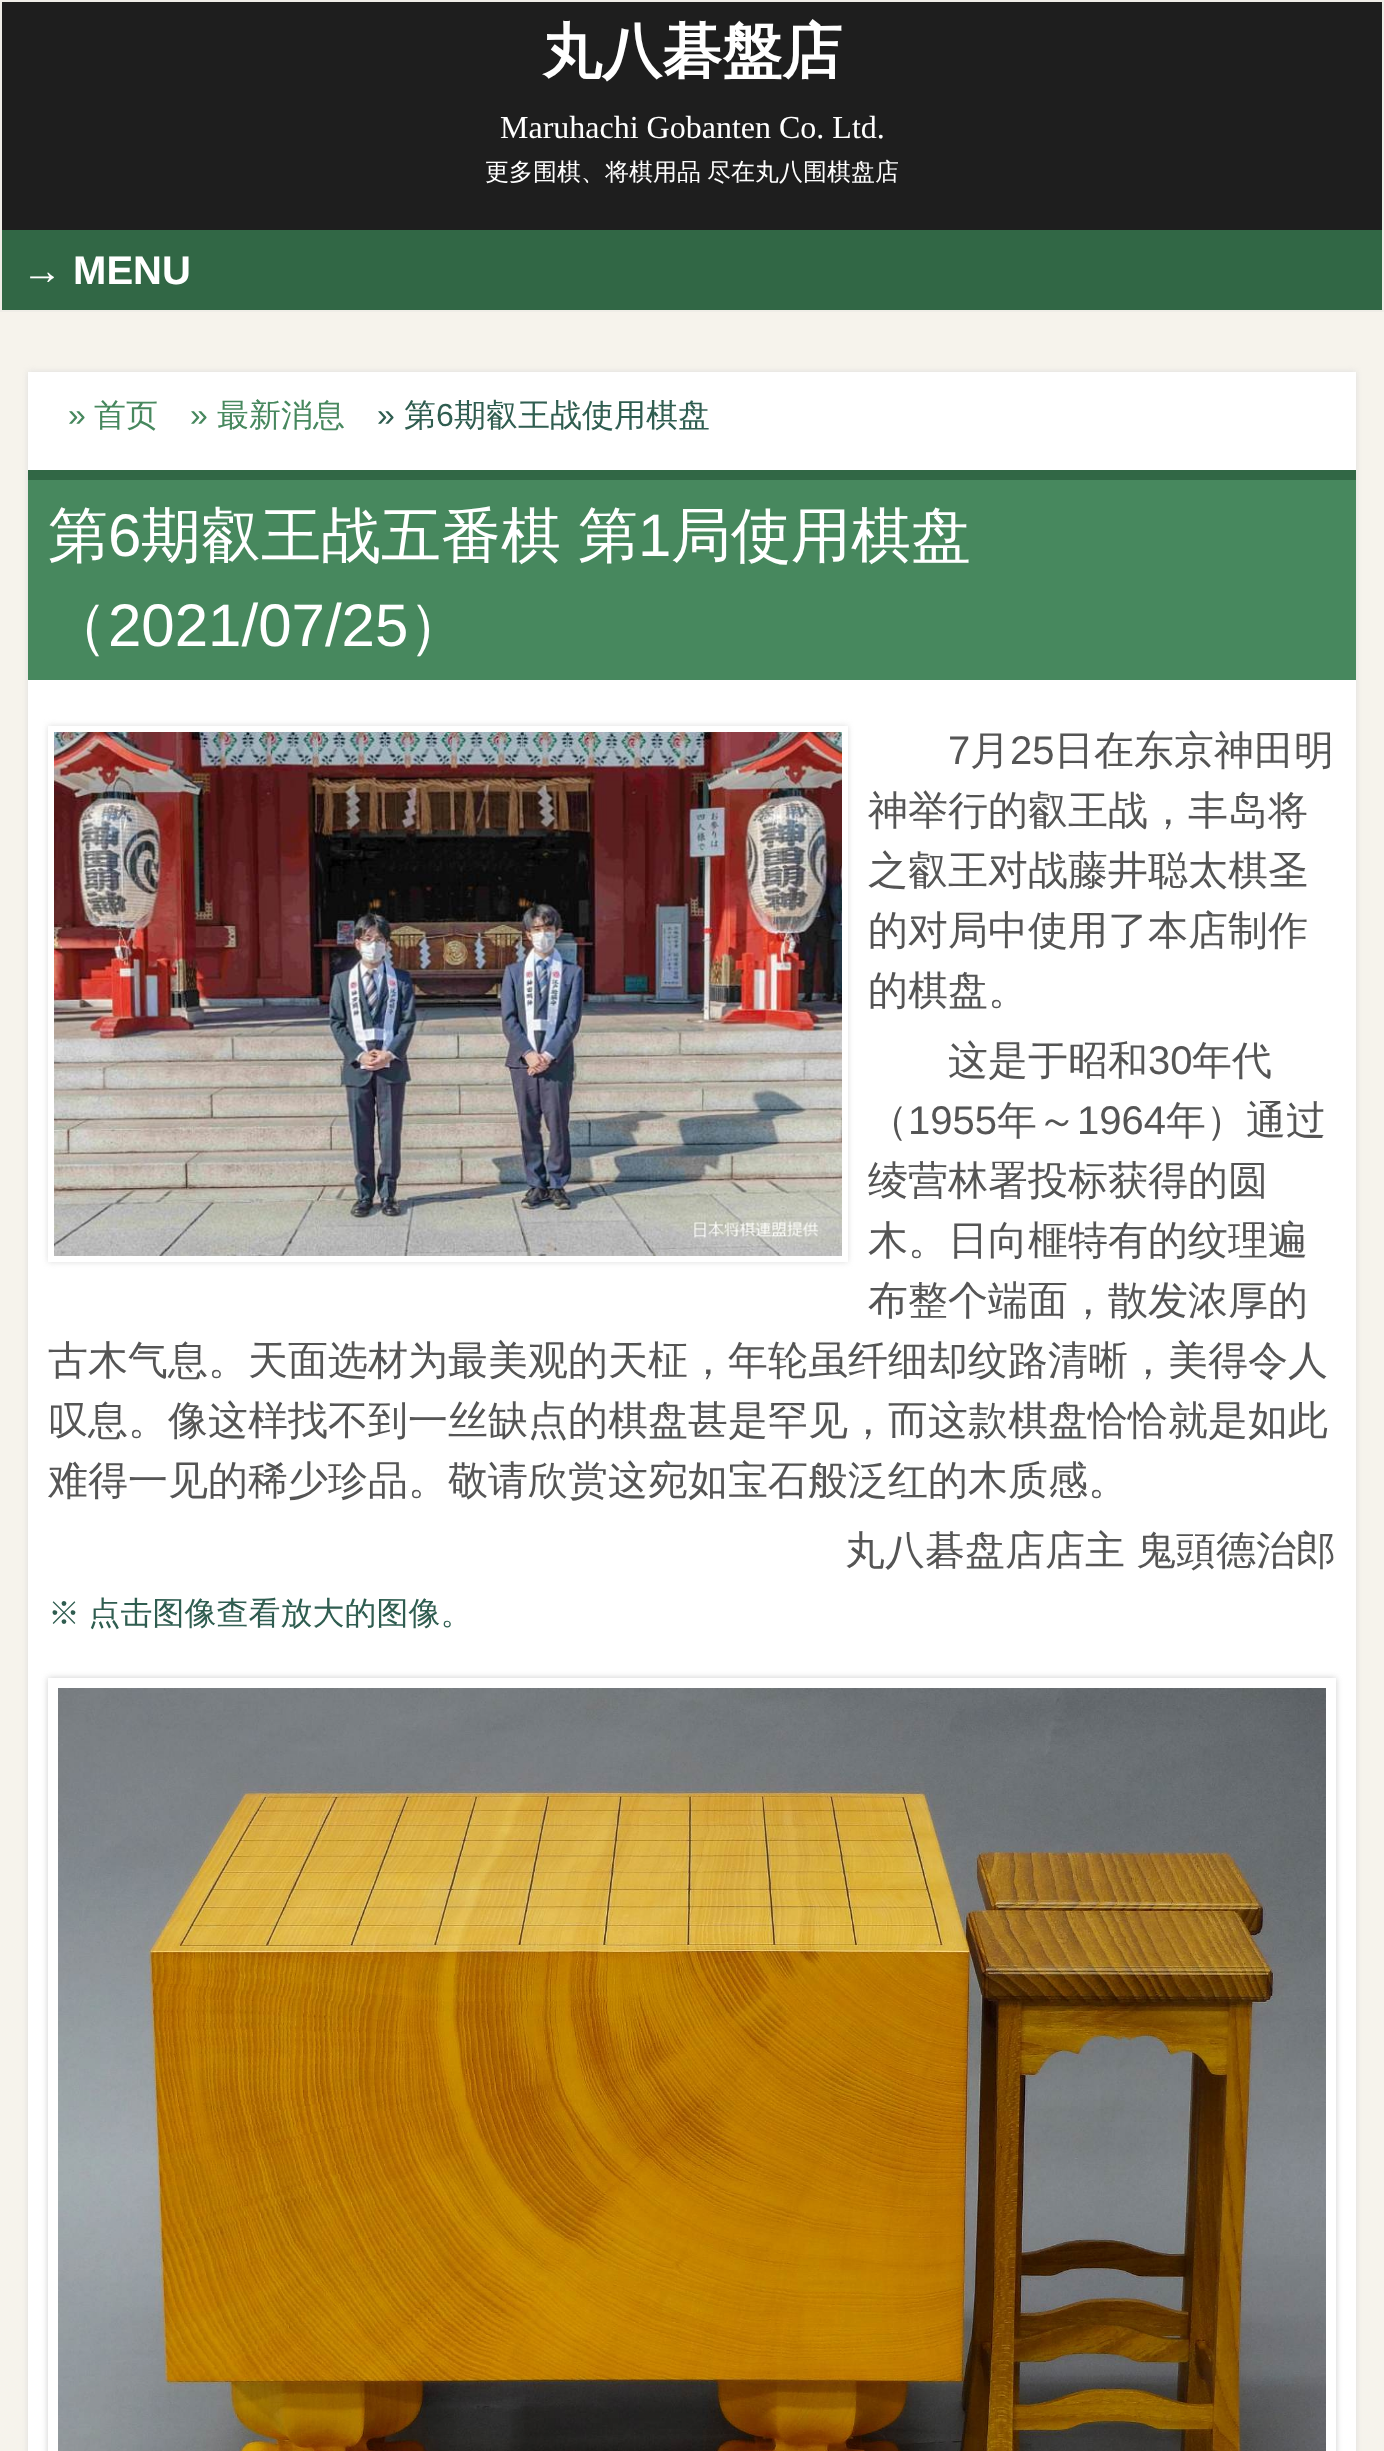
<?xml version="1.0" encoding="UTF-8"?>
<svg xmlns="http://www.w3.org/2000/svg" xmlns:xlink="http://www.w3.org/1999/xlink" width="1384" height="2451">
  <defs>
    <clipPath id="clip1"><path d="M 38 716 h 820 v 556 h -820 z m 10 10 h 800 v 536 h -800 z" clip-rule="evenodd" /></clipPath>
    <clipPath id="clip2"><path d="M 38 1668 h 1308 v 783 h -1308 z m 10 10 h 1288 v 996 h -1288 z" clip-rule="evenodd" /></clipPath>
  </defs>
  <rect width="100%" height="100%" fill="#f6f3ec" />
  <rect x="2" y="2" width="1380" height="228" fill="#1e1e1e" />
  <rect x="1" y="1" width="1382" height="310" fill="none" stroke="#efede7" stroke-width="2" />
  <rect x="2" y="230" width="1380" height="80" fill="#316745" />
  <rect x="28" y="372" width="1328" height="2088" fill="#dddddd" filter="blur(3px)" />
  <rect x="28" y="372" width="1328" height="2079" fill="#ffffff" />
  <rect x="28" y="480" width="1328" height="200" fill="#47885e" />
  <rect x="28" y="470" width="1328" height="10" fill="#316745" />
  <g clip-path="url(#clip1)">
    <rect x="48" y="726" width="800" height="536" fill="#dddddd" filter="blur(3px)" />
  </g>
  <image x="54" y="732" width="788" height="524" xlink:href="image1.png" />
  <g clip-path="url(#clip2)">
    <rect x="48" y="1678" width="1288" height="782" fill="#cccccc" filter="blur(3px)" />
  </g>
  <image x="58" y="1688" width="1268" height="763" xlink:href="image2.png" />
  <text x="542" y="72" style="font-family: WenQuanYi Zen Hei; font-size: 60px; font-weight: bold; fill: #ffffff">丸八碁盤店</text>
  <text x="500" y="138" style="font-family: Liberation Serif; font-size: 32px; fill: #ffffff">Maruhachi Gobanten Co. Ltd.</text>
  <text x="485" y="180" style="font-family: WenQuanYi Zen Hei; font-size: 24px; font-weight: 500; fill: #ffffff">更多围棋、将棋用品</text>
  <text x="707" y="180" style="font-family: WenQuanYi Zen Hei; font-size: 24px; font-weight: 500; fill: #ffffff">尽在丸八围棋盘店</text>
  <text x="22" y="284" style="font-family: Liberation Sans; font-size: 40px; font-weight: bold; fill: #ffffff">→ MENU</text>
  <text x="68" y="426" style="font-family: Liberation Sans; font-size: 32px; fill: #47885e">»</text>
  <text x="94" y="426" style="font-family: WenQuanYi Zen Hei; font-size: 32px; font-weight: 500; fill: #47885e">首页</text>
  <text x="190" y="426" style="font-family: Liberation Sans; font-size: 32px; fill: #47885e">»</text>
  <text x="217" y="426" style="font-family: WenQuanYi Zen Hei; font-size: 32px; font-weight: 500; fill: #47885e">最新消息</text>
  <text x="377" y="426" style="font-family: Liberation Sans; font-size: 32px; fill: #2f5d50">»</text>
  <text x="404" y="426" style="font-family: WenQuanYi Zen Hei; font-size: 32px; font-weight: 500; fill: #2f5d50">第</text>
  <text x="436" y="426" style="font-family: Liberation Sans; font-size: 32px; fill: #2f5d50">6</text>
  <text x="454" y="426" style="font-family: WenQuanYi Zen Hei; font-size: 32px; font-weight: 500; fill: #2f5d50">期叡王战使用棋盘</text>
  <text x="48" y="556" style="font-family: WenQuanYi Zen Hei; font-size: 60px; font-weight: 500; fill: #ffffff">第</text>
  <text x="108" y="556" style="font-family: Liberation Sans; font-size: 60px; fill: #ffffff">6</text>
  <text x="141" y="556" word-spacing="-1" style="font-family: WenQuanYi Zen Hei; font-size: 60px; font-weight: 500; fill: #ffffff">期叡王战五番棋 第</text>
  <text x="638" y="556" style="font-family: Liberation Sans; font-size: 60px; fill: #ffffff">1</text>
  <text x="671" y="556" style="font-family: WenQuanYi Zen Hei; font-size: 60px; font-weight: 500; fill: #ffffff">局使用棋盘</text>
  <text x="48" y="646" style="font-family: WenQuanYi Zen Hei; font-size: 60px; font-weight: 500; fill: #ffffff">（</text>
  <text x="108" y="646" style="font-family: Liberation Sans; font-size: 60px; fill: #ffffff">2021/07/25</text>
  <text x="408" y="646" style="font-family: WenQuanYi Zen Hei; font-size: 60px; font-weight: 500; fill: #ffffff">）</text>
  <text x="948" y="764" style="font-family: Liberation Sans; font-size: 40px; fill: #555555">7</text>
  <text x="970" y="764" style="font-family: WenQuanYi Zen Hei; font-size: 40px; font-weight: 500; fill: #555555">月</text>
  <text x="1010" y="764" style="font-family: Liberation Sans; font-size: 40px; fill: #555555">25</text>
  <text x="1054" y="764" style="font-family: WenQuanYi Zen Hei; font-size: 40px; font-weight: 500; fill: #555555">日在东京神田明</text>
  <text x="868" y="824" style="font-family: WenQuanYi Zen Hei; font-size: 40px; font-weight: 500; fill: #555555">神举行的叡王战，丰岛将</text>
  <text x="868" y="884" style="font-family: WenQuanYi Zen Hei; font-size: 40px; font-weight: 500; fill: #555555">之叡王对战藤井聪太棋圣</text>
  <text x="868" y="944" style="font-family: WenQuanYi Zen Hei; font-size: 40px; font-weight: 500; fill: #555555">的对局中使用了本店制作</text>
  <text x="868" y="1004" style="font-family: WenQuanYi Zen Hei; font-size: 40px; font-weight: 500; fill: #555555">的棋盘。</text>
  <text x="948" y="1074" style="font-family: WenQuanYi Zen Hei; font-size: 40px; font-weight: 500; fill: #555555">这是于昭和</text>
  <text x="1148" y="1074" style="font-family: Liberation Sans; font-size: 40px; fill: #555555">30</text>
  <text x="1192" y="1074" style="font-family: WenQuanYi Zen Hei; font-size: 40px; font-weight: 500; fill: #555555">年代</text>
  <text x="868" y="1134" style="font-family: WenQuanYi Zen Hei; font-size: 40px; font-weight: 500; fill: #555555">（</text>
  <text x="908" y="1134" style="font-family: Liberation Sans; font-size: 40px; fill: #555555">1955</text>
  <text x="997" y="1134" style="font-family: WenQuanYi Zen Hei; font-size: 40px; font-weight: 500; fill: #555555">年～</text>
  <text x="1077" y="1134" style="font-family: Liberation Sans; font-size: 40px; fill: #555555">1964</text>
  <text x="1166" y="1134" style="font-family: WenQuanYi Zen Hei; font-size: 40px; font-weight: 500; fill: #555555">年）通过</text>
  <text x="868" y="1194" style="font-family: WenQuanYi Zen Hei; font-size: 40px; font-weight: 500; fill: #555555">绫营林署投标获得的圆</text>
  <text x="868" y="1254" style="font-family: WenQuanYi Zen Hei; font-size: 40px; font-weight: 500; fill: #555555">木。日向榧特有的纹理遍</text>
  <text x="868" y="1314" style="font-family: WenQuanYi Zen Hei; font-size: 40px; font-weight: 500; fill: #555555">布整个端面，散发浓厚的</text>
  <text x="48" y="1374" style="font-family: WenQuanYi Zen Hei; font-size: 40px; font-weight: 500; fill: #555555">古木气息。天面选材为最美观的天柾，年轮虽纤细却纹路清晰，美得令人</text>
  <text x="48" y="1434" style="font-family: WenQuanYi Zen Hei; font-size: 40px; font-weight: 500; fill: #555555">叹息。像这样找不到一丝缺点的棋盘甚是罕见，而这款棋盘恰恰就是如此</text>
  <text x="48" y="1494" style="font-family: WenQuanYi Zen Hei; font-size: 40px; font-weight: 500; fill: #555555">难得一见的稀少珍品。敬请欣赏这宛如宝石般泛红的木质感。</text>
  <text x="845" y="1564" word-spacing="-1" style="font-family: WenQuanYi Zen Hei; font-size: 40px; font-weight: 500; fill: #555555">丸八碁盘店店主 鬼頭德治郎</text>
  <text x="48" y="1624" word-spacing="-1" style="font-family: WenQuanYi Zen Hei; font-size: 32px; font-weight: 500; fill: #2f5d50">※ 点击图像查看放大的图像。</text>
</svg>
